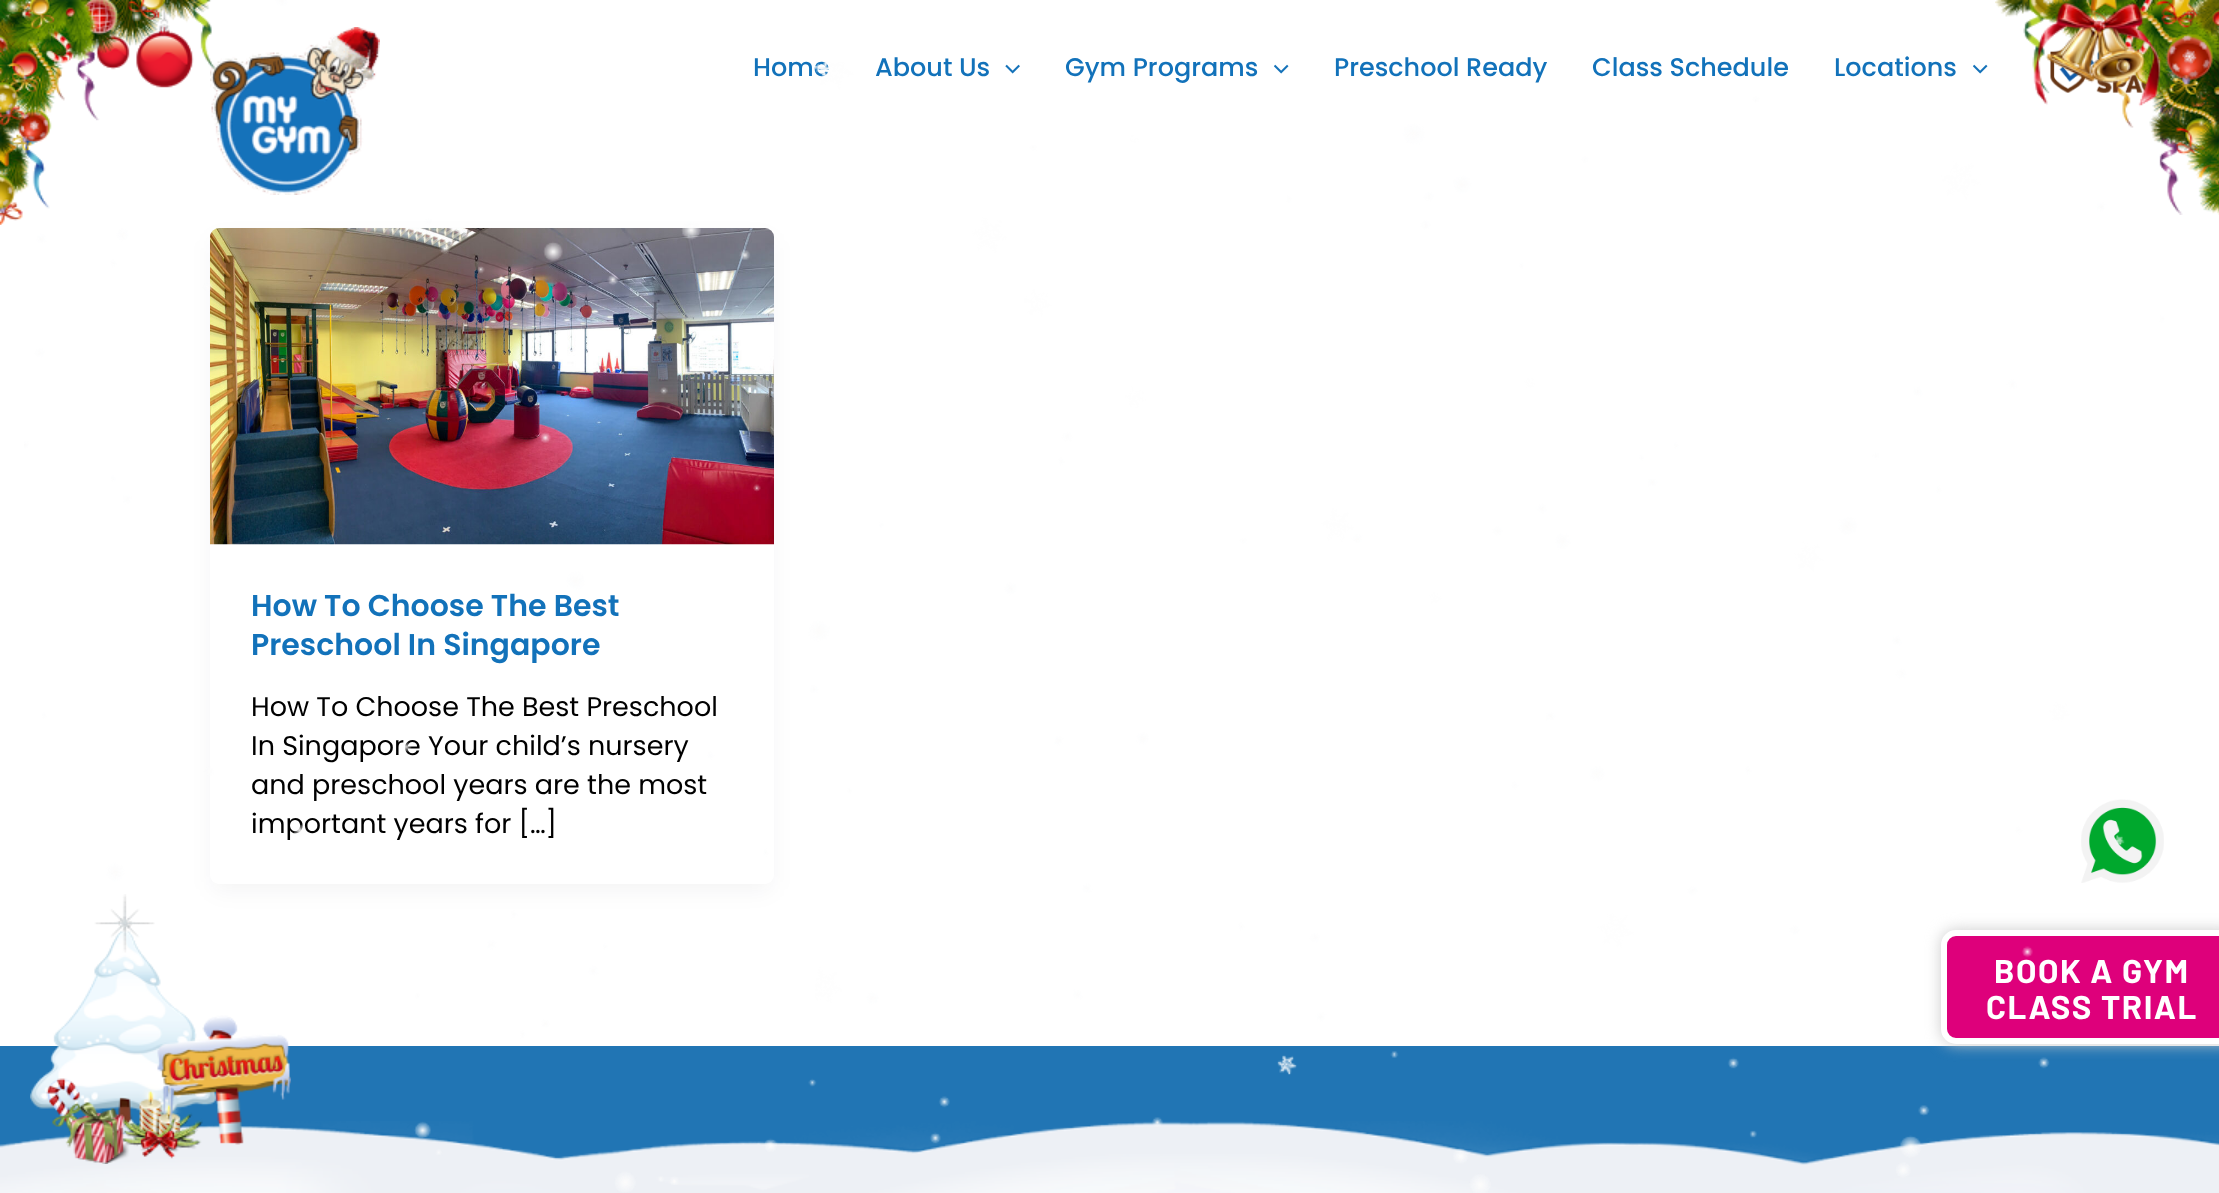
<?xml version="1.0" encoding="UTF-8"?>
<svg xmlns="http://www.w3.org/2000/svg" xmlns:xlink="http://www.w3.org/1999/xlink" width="2219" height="1193">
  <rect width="100%" height="100%" fill="#ffffff" />
  <image x="210" y="27" width="170" height="168" xlink:href="image5.png" />
  <rect x="213" y="240" width="558" height="650" rx="6" fill="#101828" fill-opacity="0.05" filter="blur(11px)" />
  <image x="0" y="0" width="216" height="225" xlink:href="image1.png" />
  <image x="2050" y="48" width="122" height="45" xlink:href="image6.png" />
  <image x="1995" y="0" width="224" height="215" xlink:href="image3.png" />
  <image x="1005" y="64" width="15" height="10" xlink:href="image7.png" />
  <image x="1274" y="64" width="15" height="10" xlink:href="image8.png" />
  <image x="1973" y="64" width="15" height="10" xlink:href="image8.png" />
  <rect x="210" y="228" width="564" height="656" rx="9" fill="#ffffff" />
  <image x="210" y="228" width="564" height="317" xlink:href="image9.png" />
  <image x="2081" y="799" width="83" height="84" xlink:href="image11.png" />
  <rect y="1046" width="2219" height="119" fill="#2175b4" />
  <image x="0" y="1121" width="2219" height="72" xlink:href="image13.png" />
  <image x="30" y="894" width="261" height="270" xlink:href="image12.png" />
  <rect x="1941" y="930" width="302" height="114" rx="15" fill="#cccccc" filter="blur(7.5px)" />
  <rect x="1944" y="933" width="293" height="108" rx="12" fill="#de007b" stroke="#ffffff" stroke-width="6" />
  <text x="753" y="76" style="font-family: Poppins; font-size: 25.5px; font-weight: 500; fill: #1272ba">Home</text>
  <text x="875" y="76" style="font-family: Poppins; font-size: 25.5px; font-weight: 500; fill: #1272ba">About Us</text>
  <text x="1065" y="76" style="font-family: Poppins; font-size: 25.5px; font-weight: 500; fill: #1272ba">Gym Programs</text>
  <text x="1334" y="76" style="font-family: Poppins; font-size: 25.5px; font-weight: 500; fill: #1272ba">Preschool Ready</text>
  <text x="1592" y="76" style="font-family: Poppins; font-size: 25.5px; font-weight: 500; fill: #1272ba">Class Schedule</text>
  <text x="1834" y="76" style="font-family: Poppins; font-size: 25.5px; font-weight: 500; fill: #1272ba">Locations</text>
  <text x="251" y="616" style="font-family: Poppins; font-size: 30px; font-weight: 600; fill: #1272ba">How To Choose The Best</text>
  <text x="251" y="655" style="font-family: Poppins; font-size: 30px; font-weight: 600; fill: #1272ba">Preschool In Singapore</text>
  <text x="251" y="716" style="font-family: Poppins; font-size: 27px; fill: #000000">How To Choose The Best Preschool</text>
  <text x="251" y="755" style="font-family: Poppins; font-size: 27px; fill: #000000">In Singapore Your child’s nursery</text>
  <text x="251" y="794" style="font-family: Poppins; font-size: 27px; fill: #000000">and preschool years are the most</text>
  <text x="251" y="833" style="font-family: Poppins; font-size: 27px; fill: #000000">important years for […]</text>
  <text x="1994" y="983" style="font-family: Barlow; font-size: 33px; font-weight: bold; letter-spacing: 1.5px; fill: #ffffff">BOOK A GYM</text>
  <text x="1986" y="1019" style="font-family: Barlow; font-size: 33px; font-weight: bold; letter-spacing: 1.5px; fill: #ffffff">CLASS TRIAL</text>
  <image x="24" y="11" width="2181" height="1174" xlink:href="image4.png" />
  <image x="6" y="0" width="1916" height="1193" xlink:href="image2.png" />
  <image x="815" y="62" width="1310" height="1013" xlink:href="image10.png" />
</svg>
